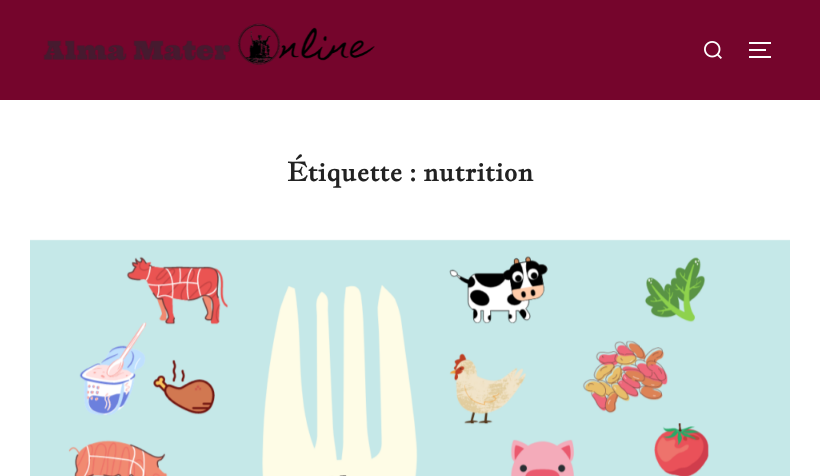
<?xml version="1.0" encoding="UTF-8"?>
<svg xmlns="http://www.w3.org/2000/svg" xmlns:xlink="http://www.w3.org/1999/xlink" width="820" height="476">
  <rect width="100%" height="100%" fill="#ffffff" />
  <rect width="820" height="100" fill="#75052c" />
  <image x="43" y="23" width="332" height="42" xlink:href="image1.png" />
  <image x="704" y="41" width="18" height="18" xlink:href="image2.png" />
  <rect x="749" y="42" width="22" height="2" fill="#ffffff" />
  <rect x="749" y="49" width="17" height="2" fill="#ffffff" />
  <rect x="749" y="56" width="22" height="2" fill="#ffffff" />
  <image x="30" y="239" width="760" height="237" xlink:href="image3.png" />
  <text x="287" y="181" style="font-family: Jacques Francois; font-size: 26px; font-weight: bold; fill: #222222">Étiquette : nutrition</text>
</svg>
